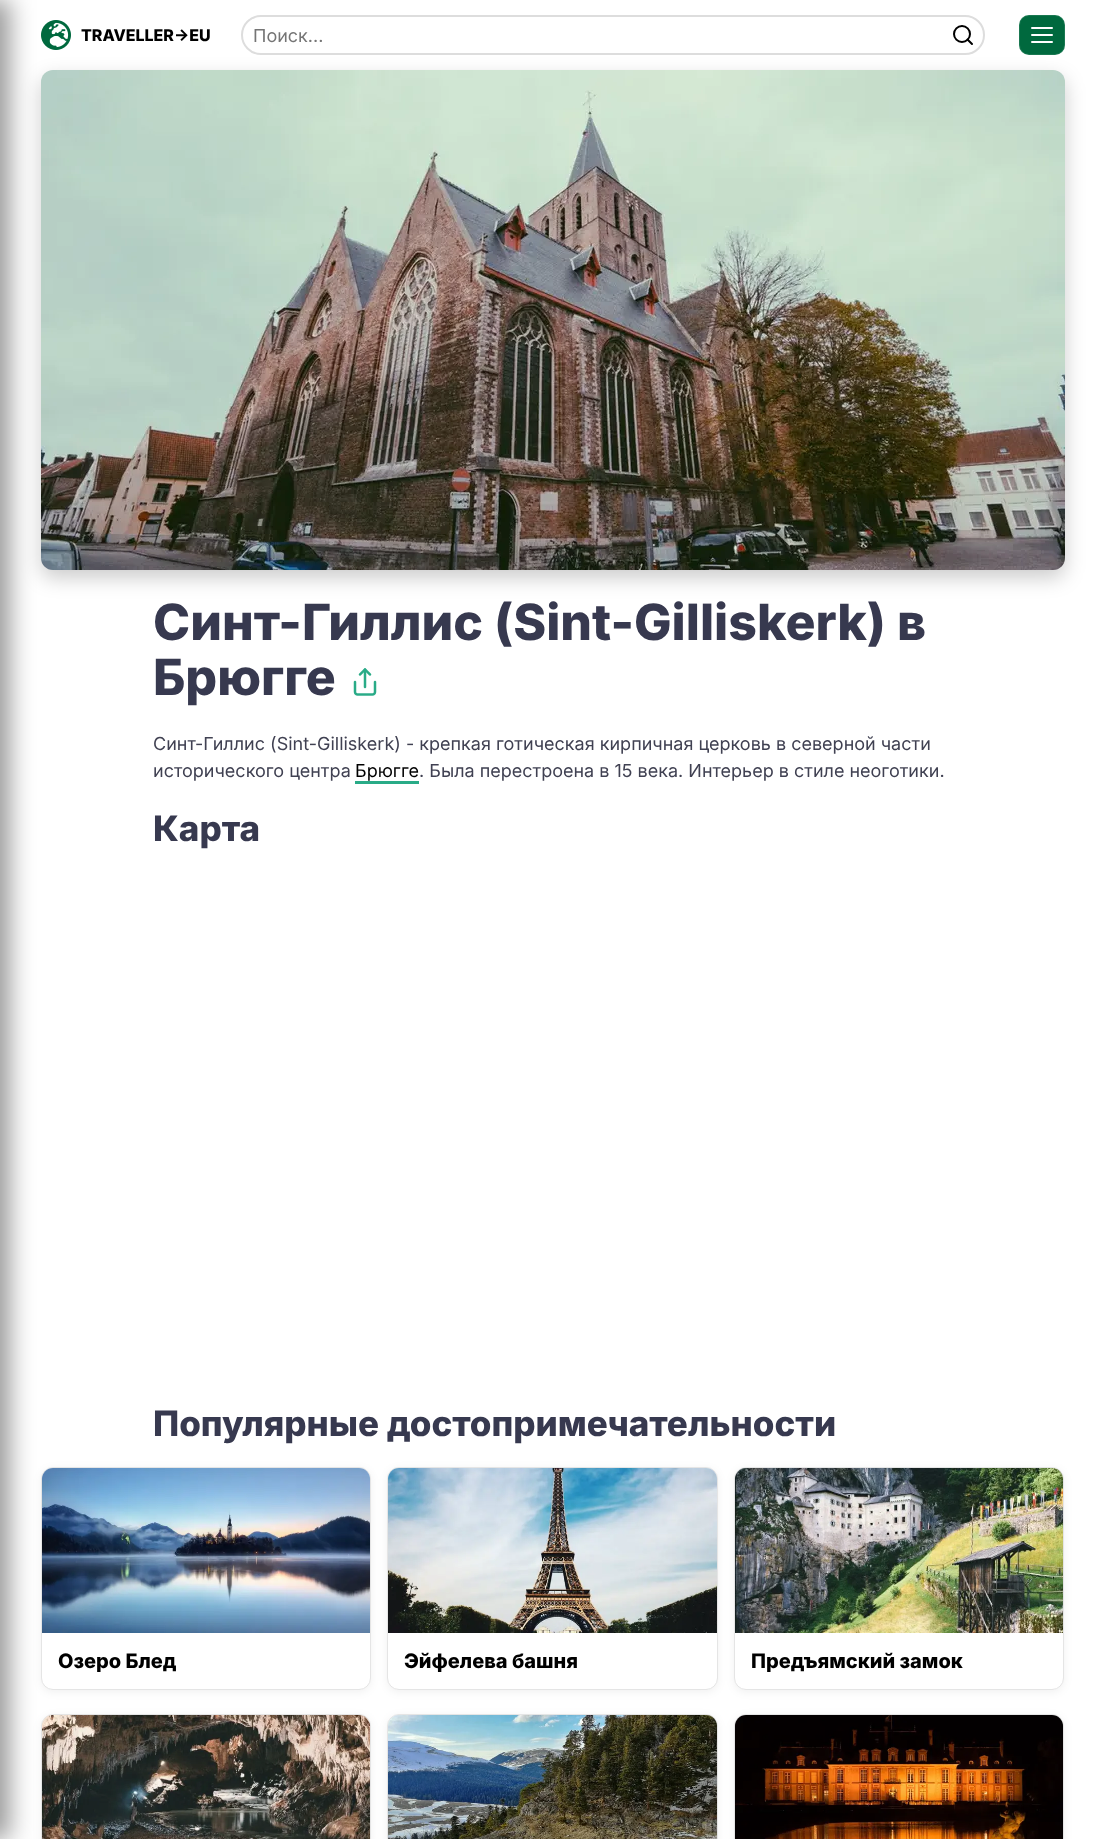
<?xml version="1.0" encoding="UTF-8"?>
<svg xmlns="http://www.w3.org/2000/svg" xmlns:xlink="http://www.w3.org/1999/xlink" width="1105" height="1839">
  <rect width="100%" height="100%" fill="#ffffff" />
  <image x="41" y="20" width="30" height="30" xlink:href="image1.png" />
  <rect x="242" y="16" width="742" height="38" rx="19" fill="none" stroke="#dddddd" stroke-width="2" />
  <rect x="41" y="78" width="1024" height="500" rx="12" fill="#000000" fill-opacity="0.2" filter="blur(10px)" />
  <image x="41" y="70" width="1024" height="500" xlink:href="image2.png" />
  <rect x="41" y="1469" width="330" height="223" rx="12" fill="#000000" fill-opacity="0.06" filter="blur(4px)" />
  <rect x="41.5" y="1467.5" width="329" height="222" rx="11.5" fill="#ffffff" stroke="#e5e5e5" />
  <image x="42" y="1468" width="328" height="165" xlink:href="image4.png" />
  <rect x="41" y="1716" width="330" height="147" rx="12" fill="#000000" fill-opacity="0.06" filter="blur(4px)" />
  <rect x="41.5" y="1714.5" width="329" height="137" rx="11.5" fill="none" stroke="#e5e5e5" />
  <image x="42" y="1715" width="328" height="124" xlink:href="image7.png" />
  <rect x="-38" width="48" height="1839" fill="#000000" fill-opacity="0.4" filter="blur(12.5px)" />
  <circle cx="962" cy="34" r="8" fill="none" stroke="#000000" stroke-width="2" />
  <path d="M 972 44 l -4.5 -4.5 z" fill="none" stroke="#000000" stroke-width="2" stroke-linecap="round" stroke-linejoin="round" />
  <rect x="1019" y="15" width="46" height="40" rx="10" fill="#00693e" />
  <rect x="1019.5" y="15.5" width="45" height="39" rx="9.5" fill="none" stroke="#ffffff" stroke-opacity="0.1" />
  <rect x="1031" y="27" width="22" height="2" rx="1" fill="#ffffff" />
  <rect x="1031" y="34" width="22" height="2" rx="1" fill="#ffffff" />
  <rect x="1031" y="41" width="22" height="2" rx="1" fill="#ffffff" />
  <image x="353" y="668" width="24" height="28" xlink:href="image3.png" />
  <rect x="355" y="781" width="64" height="3" fill="#29ab87" />
  <rect x="387" y="1469" width="331" height="223" rx="12" fill="#000000" fill-opacity="0.06" filter="blur(4px)" />
  <rect x="387.5" y="1467.5" width="330" height="222" rx="11.5" fill="#ffffff" stroke="#e5e5e5" />
  <image x="388" y="1468" width="329" height="165" xlink:href="image5.png" />
  <rect x="734" y="1469" width="330" height="223" rx="12" fill="#000000" fill-opacity="0.06" filter="blur(4px)" />
  <rect x="734.5" y="1467.5" width="329" height="222" rx="11.5" fill="#ffffff" stroke="#e5e5e5" />
  <image x="735" y="1468" width="328" height="165" xlink:href="image6.png" />
  <rect x="387" y="1716" width="331" height="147" rx="12" fill="#000000" fill-opacity="0.06" filter="blur(4px)" />
  <rect x="387.5" y="1714.5" width="330" height="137" rx="11.5" fill="none" stroke="#e5e5e5" />
  <image x="388" y="1715" width="329" height="124" xlink:href="image8.png" />
  <rect x="734" y="1716" width="330" height="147" rx="12" fill="#000000" fill-opacity="0.06" filter="blur(4px)" />
  <rect x="734.5" y="1714.5" width="329" height="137" rx="11.5" fill="none" stroke="#e5e5e5" />
  <image x="735" y="1715" width="328" height="124" xlink:href="image9.png" />
  <text x="81" y="41" style="font-family: Inter; font-size: 16px; font-weight: 800; fill: #000000">TRAVELLER-&gt;EU</text>
  <text x="253" y="42" style="font-family: Inter; font-size: 18px; fill: #757575">Поиск...</text>
  <text x="153" y="640" style="font-family: Inter; font-size: 50px; font-weight: 800; fill: #37394f">Синт-Гиллис (Sint-Gilliskerk) в</text>
  <text x="153" y="695" style="font-family: Inter; font-size: 50px; font-weight: 800; fill: #37394f">Брюгге</text>
  <text x="153" y="750" style="font-family: Inter; font-size: 18px; fill: #404152">Синт-Гиллис (Sint-Gilliskerk) - крепкая готическая кирпичная церковь в северной части</text>
  <text x="153" y="777" style="font-family: Inter; font-size: 18px; fill: #404152">исторического центра</text>
  <text x="355" y="777" style="font-family: Inter; font-size: 18px; fill: #000000">Брюгге</text>
  <text x="419" y="777" style="font-family: Inter; font-size: 18px; fill: #404152">. Была перестроена в 15 века. Интерьер в стиле неоготики.</text>
  <text x="153" y="841" style="font-family: Inter; font-size: 35px; font-weight: 800; fill: #37394f">Карта</text>
  <text x="153" y="1436" style="font-family: Inter; font-size: 35px; font-weight: 800; fill: #37394f">Популярные достопримечательности</text>
  <text x="58" y="1668" style="font-family: Inter; font-size: 20px; font-weight: 800; fill: #000000">Озеро Блед</text>
  <text x="404" y="1668" style="font-family: Inter; font-size: 20px; font-weight: 800; fill: #000000">Эйфелева башня</text>
  <text x="751" y="1668" style="font-family: Inter; font-size: 20px; font-weight: 800; fill: #000000">Предъямский замок</text>
</svg>
